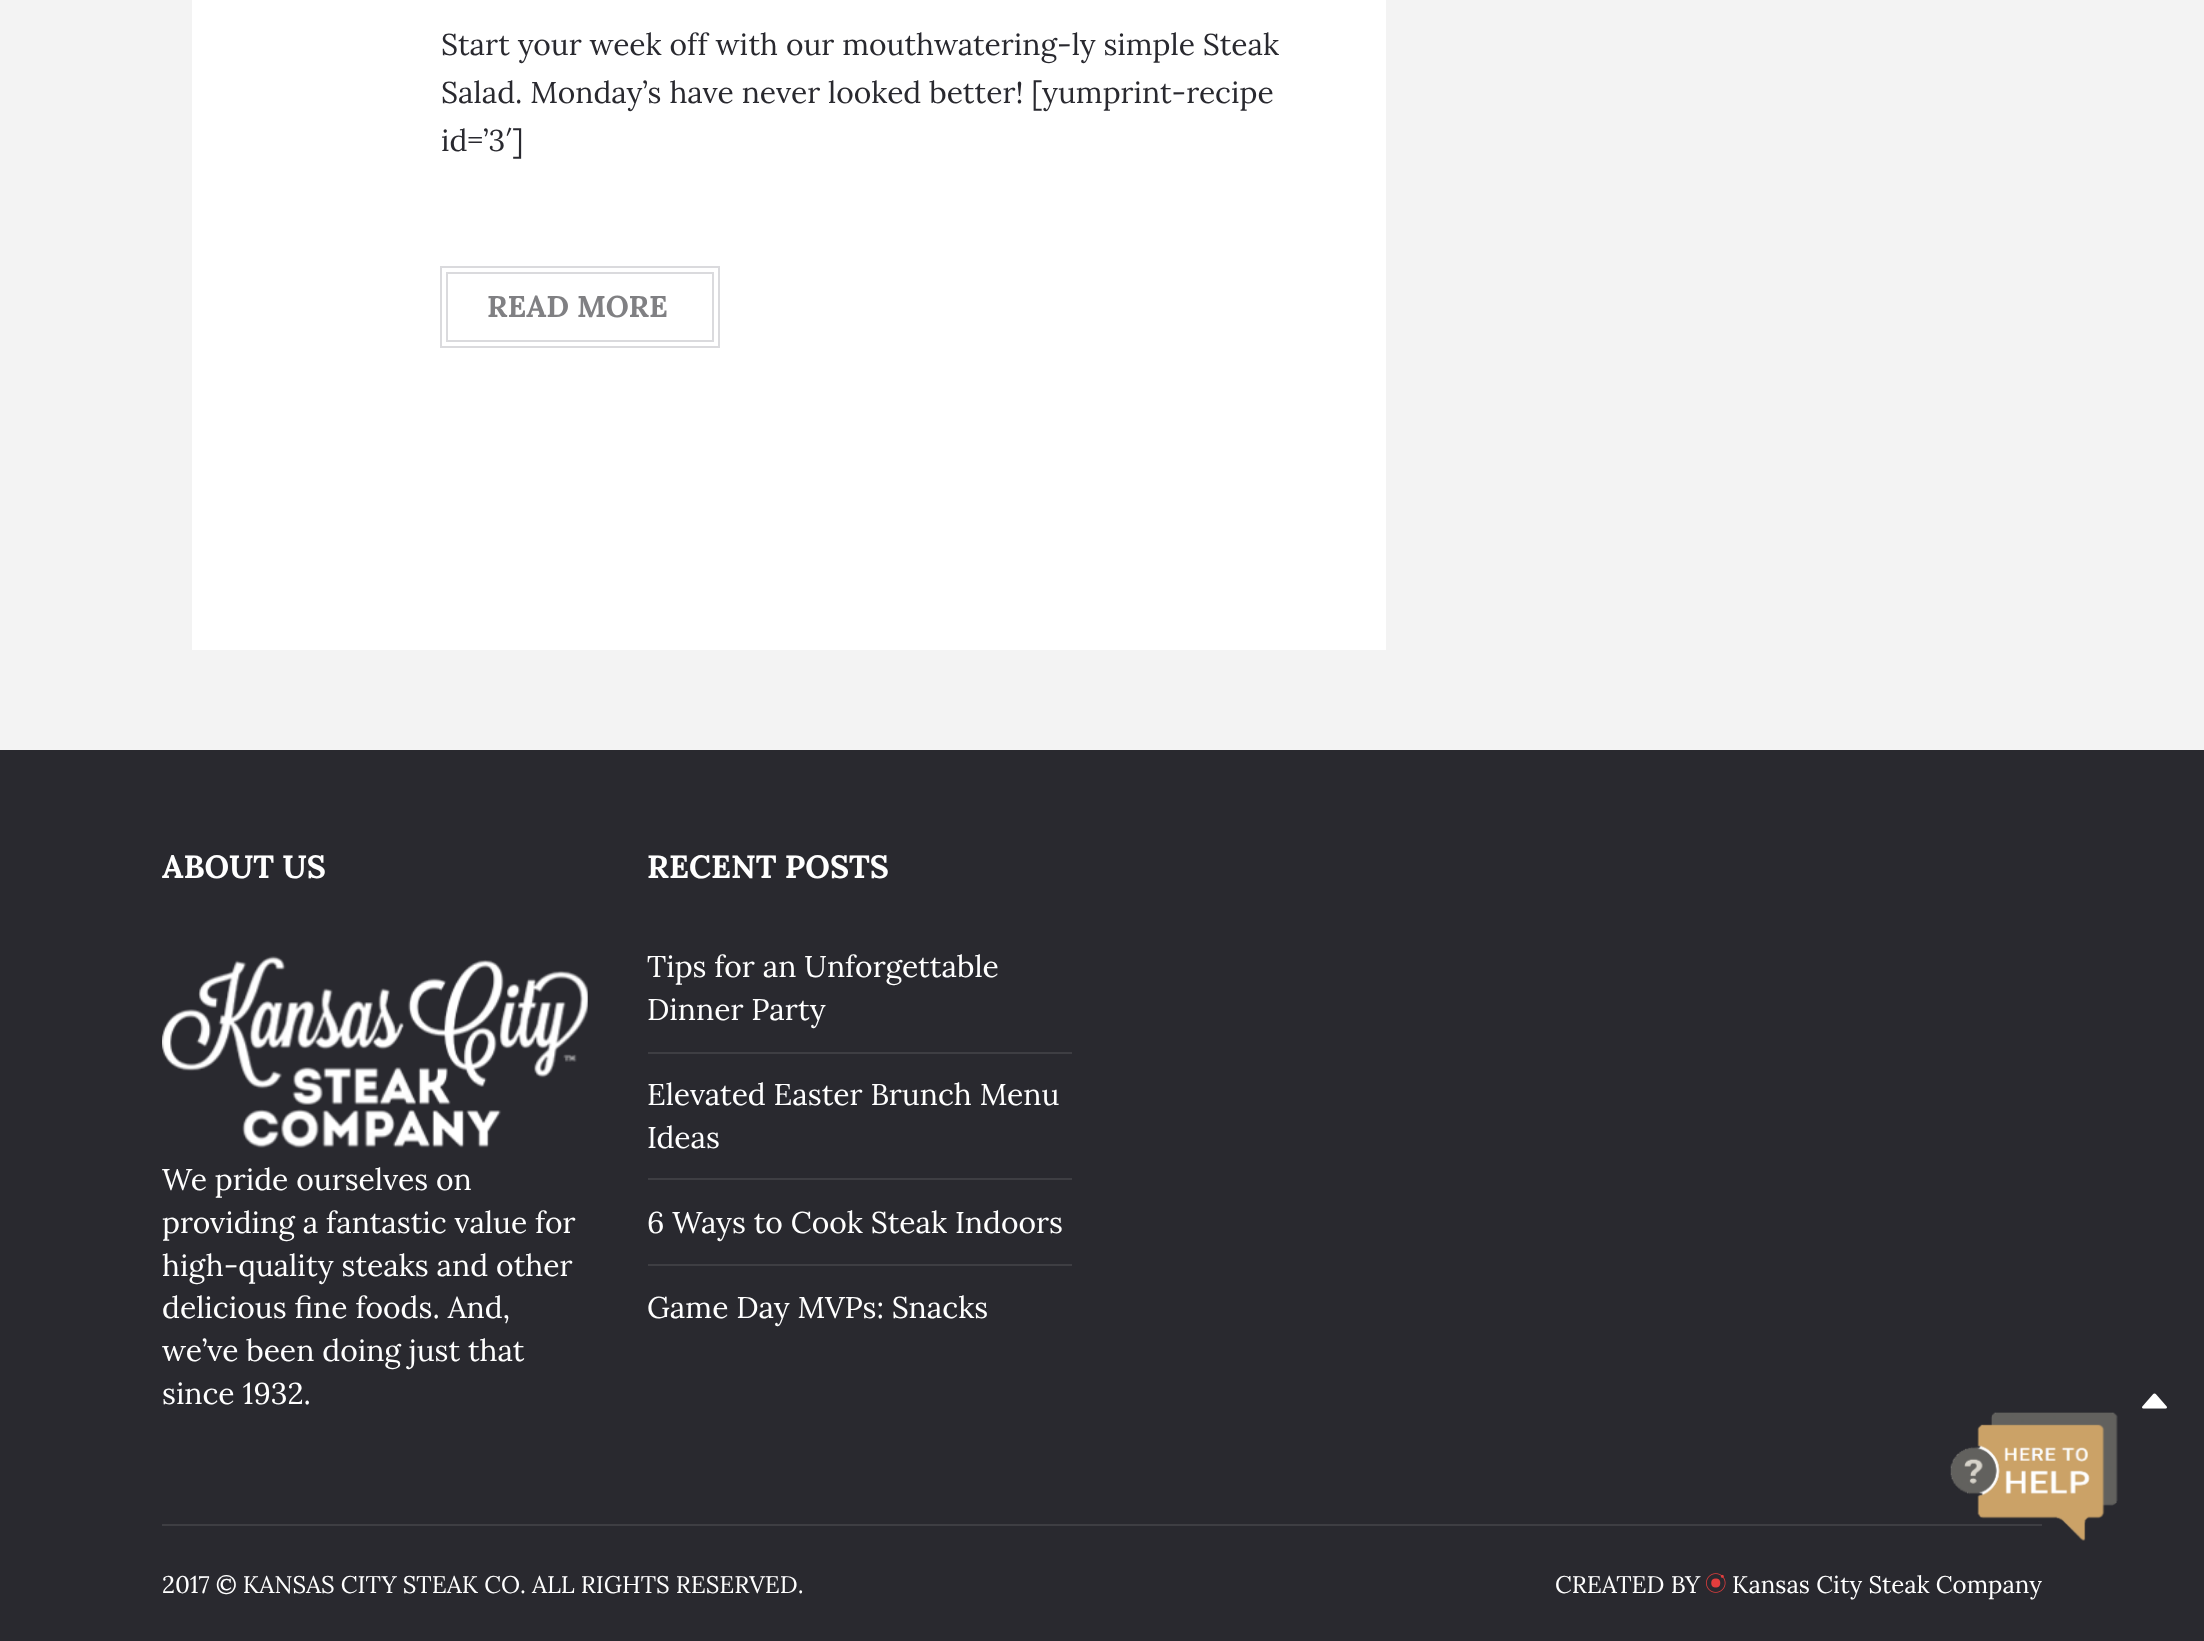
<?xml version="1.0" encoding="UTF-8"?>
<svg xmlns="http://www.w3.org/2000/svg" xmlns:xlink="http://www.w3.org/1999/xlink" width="2204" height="1641">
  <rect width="100%" height="100%" fill="#f3f3f3" />
  <rect x="192" width="1194" height="650" fill="#ffffff" />
  <rect x="441" y="267" width="278" height="80" fill="none" stroke="#dadadd" stroke-width="2" />
  <rect x="447" y="273" width="266" height="68" fill="none" stroke="#dadadd" stroke-width="2" />
  <rect y="750" width="2204" height="891" fill="#29292f" />
  <image x="162" y="956" width="426" height="192" xlink:href="image1.png" />
  <rect x="648" y="1052" width="424" height="2" fill="#3e3e43" />
  <rect x="648" y="1178" width="424" height="2" fill="#3e3e43" />
  <rect x="648" y="1264" width="424" height="2" fill="#3e3e43" />
  <rect x="162" y="1524" width="1880" height="2" fill="#3e3e43" />
  <image x="1706" y="1573" width="20" height="20" xlink:href="image2.png" />
  <image x="2142" y="1393" width="25" height="16" xlink:href="image3.png" />
  <image x="1950" y="1412" width="168" height="129" xlink:href="image4.png" />
  <text x="441" y="55" style="font-family: Lora; font-size: 30px; fill: #29292f">Start your week off with our mouthwatering-ly simple Steak</text>
  <text x="441" y="103" style="font-family: Lora; font-size: 30px; fill: #29292f">Salad. Monday’s have never looked better! [yumprint-recipe</text>
  <text x="441" y="151" style="font-family: Lora; font-size: 30px; fill: #29292f">id=’3′]</text>
  <text x="487" y="317" style="font-family: Lora; font-size: 30px; font-weight: bold; fill: #808083">READ MORE</text>
  <text x="162" y="878" style="font-family: Lora; font-size: 32px; font-weight: bold; fill: #ffffff">ABOUT US</text>
  <text x="162" y="1190" style="font-family: Lora; font-size: 30px; fill: #ffffff">We pride ourselves on</text>
  <text x="162" y="1233" style="font-family: Lora; font-size: 30px; fill: #ffffff">providing a fantastic value for</text>
  <text x="162" y="1276" style="font-family: Lora; font-size: 30px; fill: #ffffff">high-quality steaks and other</text>
  <text x="162" y="1318" style="font-family: Lora; font-size: 30px; fill: #ffffff">delicious fine foods. And,</text>
  <text x="162" y="1361" style="font-family: Lora; font-size: 30px; fill: #ffffff">we’ve been doing just that</text>
  <text x="162" y="1404" style="font-family: Lora; font-size: 30px; fill: #ffffff">since 1932.</text>
  <text x="647" y="878" style="font-family: Lora; font-size: 32px; font-weight: bold; fill: #ffffff">RECENT POSTS</text>
  <text x="647" y="977" style="font-family: Lora; font-size: 30px; fill: #ffffff">Tips for an Unforgettable</text>
  <text x="647" y="1020" style="font-family: Lora; font-size: 30px; fill: #ffffff">Dinner Party</text>
  <text x="647" y="1105" style="font-family: Lora; font-size: 30px; fill: #ffffff">Elevated Easter Brunch Menu</text>
  <text x="647" y="1148" style="font-family: Lora; font-size: 30px; fill: #ffffff">Ideas</text>
  <text x="647" y="1233" style="font-family: Lora; font-size: 30px; fill: #ffffff">6 Ways to Cook Steak Indoors</text>
  <text x="647" y="1318" style="font-family: Lora; font-size: 30px; fill: #ffffff">Game Day MVPs: Snacks</text>
  <text x="162" y="1593" word-spacing="-0.25" style="font-family: Lora; font-size: 24px; fill: #ffffff">2017 © KANSAS CITY STEAK CO. ALL RIGHTS RESERVED.</text>
  <text x="1555" y="1593" style="font-family: Lora; font-size: 24px; fill: #ffffff">CREATED BY</text>
  <text x="1732" y="1593" style="font-family: Lora; font-size: 24px; fill: #ffffff">Kansas City Steak Company</text>
</svg>
